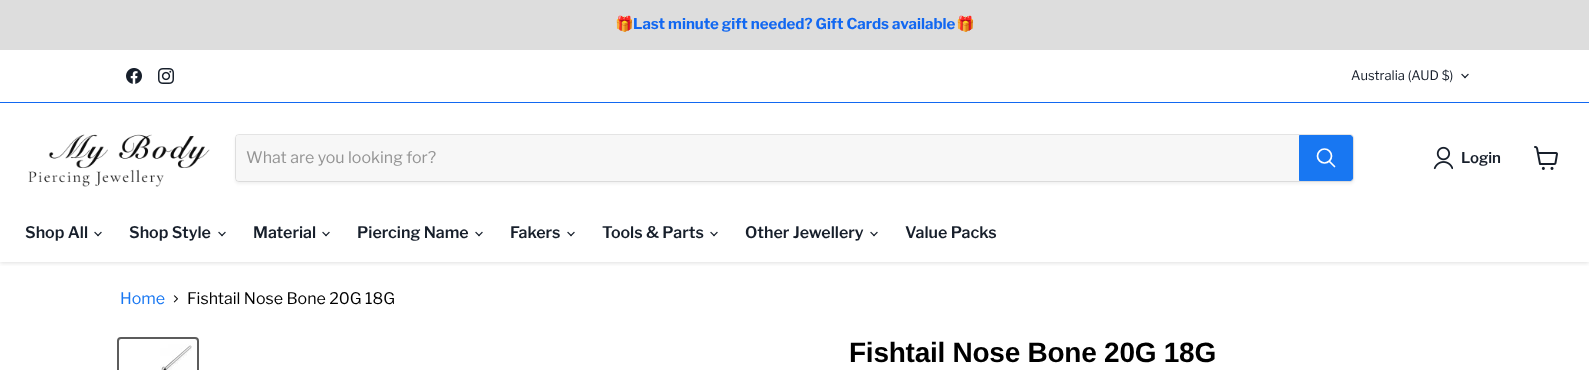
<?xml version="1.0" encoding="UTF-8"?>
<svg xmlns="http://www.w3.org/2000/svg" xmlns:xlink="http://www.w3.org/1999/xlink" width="1589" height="370">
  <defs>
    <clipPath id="clip1"><rect x="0" y="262" width="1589" height="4" /></clipPath>
  </defs>
  <rect width="100%" height="100%" fill="#ffffff" />
  <rect width="1589" height="50" fill="#dddddd" />
  <g clip-path="url(#clip1)">
    <rect y="104" width="1589" height="159" fill="#808080" fill-opacity="0.25" filter="blur(2px)" />
  </g>
  <rect x="2" y="101" width="1585" height="1" fill="#ffffff" />
  <rect y="102" width="1589" height="1" fill="#1268f1" />
  <image x="126" y="68" width="16" height="16" xlink:href="image1.png" />
  <image x="158" y="68" width="16" height="16" xlink:href="image2.png" />
  <image x="1461" y="73" width="8" height="6" xlink:href="image3.png" />
  <image x="28" y="134" width="182" height="53" xlink:href="image4.png" />
  <rect x="235" y="136" width="1119" height="48" rx="4" fill="#808080" fill-opacity="0.11" filter="blur(1.5px)" />
  <rect x="235.5" y="134.5" width="1118" height="47" rx="3.5" fill="none" stroke="#808080" stroke-opacity="0.2" />
  <path d="M 239 135 h 1060 v 46 h -1060 c -1.5 0 -3 -1.5 -3 -3 v -40 c 0 -1.5 1.5 -3 3 -3 z" fill="#f7f7f7" />
  <path d="M 1299.5 135.5 h 50.5 c 1.5 0 2.5 1 2.5 2.5 v 40 c 0 1.5 -1 2.5 -2.5 2.5 h -50.5 z" fill="#1877f2" stroke="#1877f2" />
  <path d="M 1334.5 166.5 l -5 -5" fill="none" stroke="#ffffff" stroke-width="1.7" stroke-linecap="round" />
  <circle cx="1324.5" cy="156" r="7" fill="none" stroke="#ffffff" stroke-width="1.7" />
  <image x="1433" y="146" width="20" height="24" xlink:href="image5.png" />
  <image x="1534" y="146" width="24" height="24" xlink:href="image6.png" />
  <image x="94" y="231" width="8" height="6" xlink:href="image3.png" />
  <image x="218" y="231" width="8" height="6" xlink:href="image3.png" />
  <image x="322" y="231" width="8" height="6" xlink:href="image3.png" />
  <image x="475" y="231" width="8" height="6" xlink:href="image3.png" />
  <image x="567" y="231" width="8" height="6" xlink:href="image3.png" />
  <image x="710" y="231" width="8" height="6" xlink:href="image3.png" />
  <image x="870" y="231" width="8" height="6" xlink:href="image3.png" />
  <image x="173" y="295" width="5" height="8" xlink:href="image7.png" />
  <rect x="118" y="338" width="80" height="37" rx="3" fill="none" stroke="#5c5c5c" stroke-width="2" />
  <image x="160" y="344" width="32" height="26" xlink:href="image8.png" />
  <text x="615" y="29" style="font-family: Noto Color Emoji; font-size: 15px; font-weight: bold; fill: #1268f1">🎁</text>
  <text x="633" y="29" style="font-family: Libre Franklin; font-size: 15px; font-weight: bold; fill: #1268f1">Last minute gift needed? Gift Cards available</text>
  <text x="956" y="29" style="font-family: Noto Color Emoji; font-size: 15px; font-weight: bold; fill: #1268f1">🎁</text>
  <text x="1351" y="80" style="font-family: Libre Franklin; font-size: 13px; fill: #171f2b">Australia (AUD $)</text>
  <text x="246" y="163" style="font-family: Libre Franklin; font-size: 16px; fill: #949494">What are you looking for?</text>
  <text x="1461" y="163" style="font-family: Libre Franklin; font-size: 15px; font-weight: 600; fill: #171f2b">Login</text>
  <text x="25" y="238" style="font-family: Libre Franklin; font-size: 16px; font-weight: 600; fill: #171f2b">Shop All</text>
  <text x="129" y="238" style="font-family: Libre Franklin; font-size: 16px; font-weight: 600; fill: #171f2b">Shop Style</text>
  <text x="253" y="238" style="font-family: Libre Franklin; font-size: 16px; font-weight: 600; fill: #171f2b">Material</text>
  <text x="357" y="238" style="font-family: Libre Franklin; font-size: 16px; font-weight: 600; fill: #171f2b">Piercing Name</text>
  <text x="510" y="238" style="font-family: Libre Franklin; font-size: 16px; font-weight: 600; fill: #171f2b">Fakers</text>
  <text x="602" y="238" style="font-family: Libre Franklin; font-size: 16px; font-weight: 600; fill: #171f2b">Tools &amp; Parts</text>
  <text x="745" y="238" style="font-family: Libre Franklin; font-size: 16px; font-weight: 600; fill: #171f2b">Other Jewellery</text>
  <text x="905" y="238" style="font-family: Libre Franklin; font-size: 16px; font-weight: 600; fill: #171f2b">Value Packs</text>
  <text x="120" y="304" style="font-family: Libre Franklin; font-size: 16px; fill: #1877f2">Home</text>
  <text x="187" y="304" style="font-family: Libre Franklin; font-size: 16px; fill: #000000">Fishtail Nose Bone 20G 18G</text>
  <text x="849" y="362" style="font-family: Arimo; font-size: 28px; font-weight: bold; letter-spacing: -0.25px; fill: #000000">Fishtail Nose Bone 20G 18G</text>
</svg>
